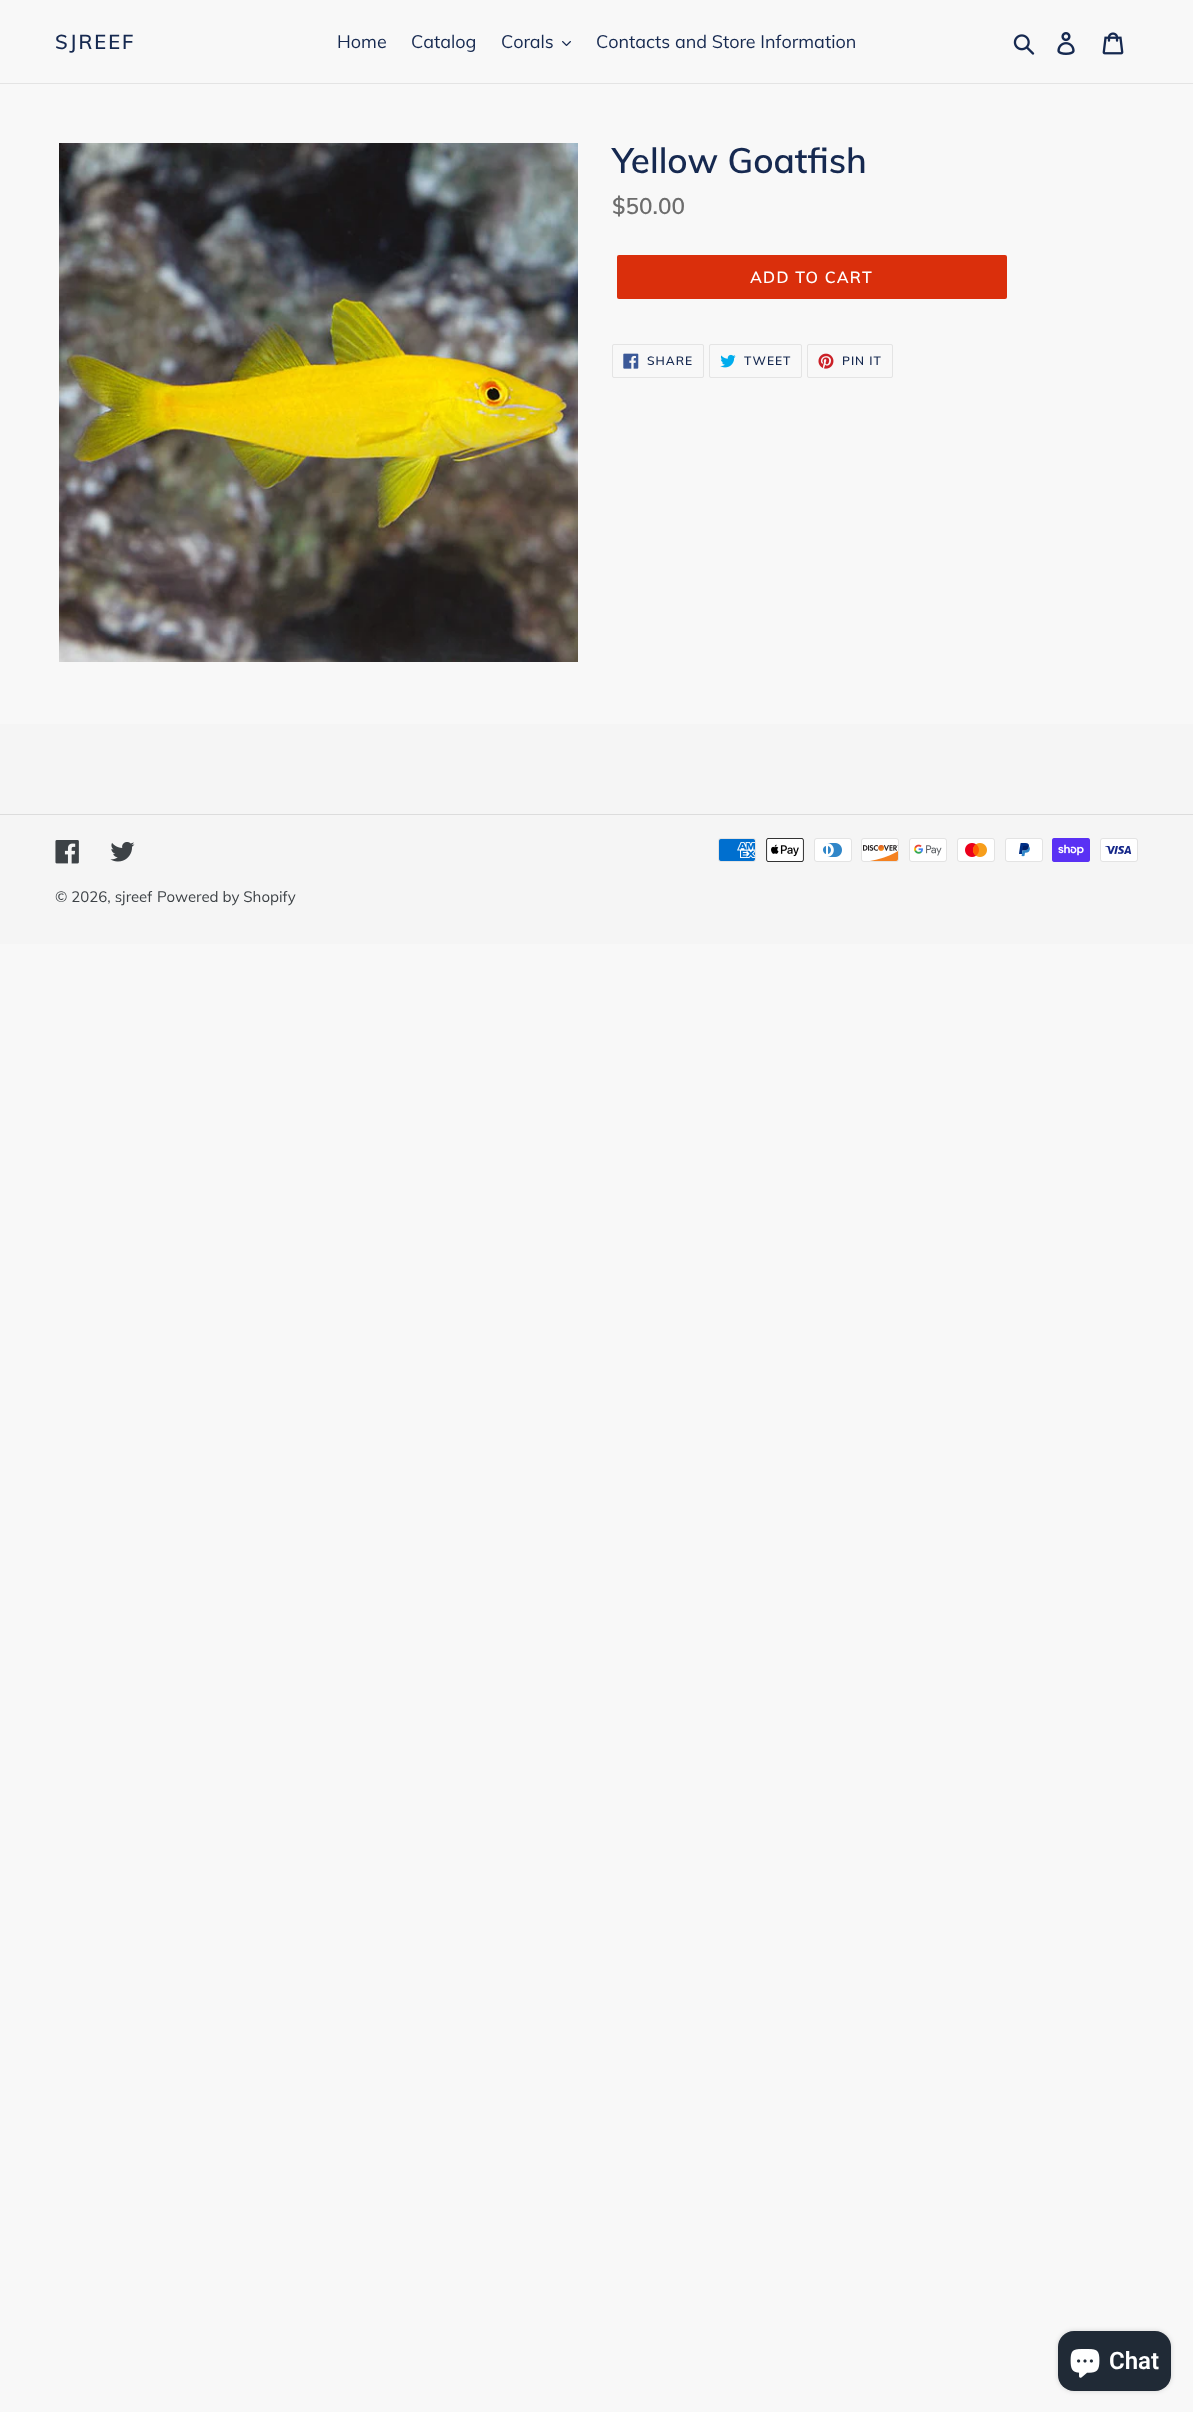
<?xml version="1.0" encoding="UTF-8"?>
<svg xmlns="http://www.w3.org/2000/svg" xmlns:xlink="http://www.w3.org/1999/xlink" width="1193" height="2412">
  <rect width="100%" height="100%" fill="#f8f8f8" />
  <rect y="83" width="1193" height="1" fill="#e4e4e4" />
  <image x="562" y="41" width="9" height="5" xlink:href="image1.png" />
  <image x="1013" y="34" width="22" height="21" xlink:href="image2.png" />
  <image x="1057" y="32" width="18" height="23" xlink:href="image3.png" />
  <image x="1102" y="32" width="22" height="23" xlink:href="image4.png" />
  <image x="59" y="143" width="519" height="519" xlink:href="image5.png" />
  <rect x="617" y="255" width="390" height="44" rx="2" fill="#da2f0c" />
  <rect x="612.5" y="344.5" width="91" height="33" rx="1.5" fill="none" stroke="#e4e4e4" />
  <image x="623" y="353" width="16" height="16" xlink:href="image6.png" />
  <rect x="709.5" y="344.5" width="92" height="33" rx="1.5" fill="none" stroke="#e4e4e4" />
  <image x="720" y="354" width="16" height="14" xlink:href="image7.png" />
  <rect x="807.5" y="344.5" width="85" height="33" rx="1.5" fill="none" stroke="#e4e4e4" />
  <image x="818" y="353" width="16" height="16" xlink:href="image8.png" />
  <rect y="724" width="1193" height="220" fill="#f5f5f5" />
  <rect y="814" width="1193" height="1" fill="#dcdcdc" />
  <image x="55" y="840" width="24" height="24" xlink:href="image9.png" />
  <image x="110" y="842" width="25" height="20" xlink:href="image10.png" />
  <image x="718" y="838" width="38" height="24" xlink:href="image11.png" />
  <image x="766" y="838" width="38" height="24" xlink:href="image12.png" />
  <image x="814" y="838" width="38" height="24" xlink:href="image13.png" />
  <image x="861" y="838" width="38" height="24" xlink:href="image14.png" />
  <image x="909" y="838" width="38" height="24" xlink:href="image15.png" />
  <image x="957" y="838" width="38" height="24" xlink:href="image16.png" />
  <image x="1005" y="838" width="38" height="24" xlink:href="image17.png" />
  <image x="1052" y="838" width="38" height="24" xlink:href="image18.png" />
  <image x="1100" y="838" width="38" height="24" xlink:href="image19.png" />
  <rect x="1058" y="2331" width="113" height="60" rx="16" fill="#000000" fill-opacity="0.15" filter="blur(2.5px)" />
  <rect x="1058" y="2331" width="113" height="60" rx="16" fill="#202a36" />
  <image x="1070" y="2349" width="30" height="29" xlink:href="image20.png" />
  <text x="55" y="49" style="font-family: Muli; font-size: 20px; font-weight: 600; letter-spacing: 2px; fill: #162950">SJREEF</text>
  <text x="337" y="48" style="font-family: Muli; font-size: 18px; fill: #162950">Home</text>
  <text x="411" y="48" style="font-family: Muli; font-size: 18px; fill: #162950">Catalog</text>
  <text x="501" y="48" style="font-family: Muli; font-size: 18px; fill: #162950">Corals</text>
  <text x="596" y="48" style="font-family: Muli; font-size: 18px; fill: #162950">Contacts and Store Information</text>
  <text x="612" y="173" style="font-family: Muli; font-size: 35px; font-weight: 600; fill: #162950">Yellow Goatfish</text>
  <text x="612" y="214" style="font-family: Muli; font-size: 22.5px; font-weight: 600; fill: #6d6d6d">$50.00</text>
  <text x="750" y="283" style="font-family: Muli; font-size: 16px; font-weight: 600; letter-spacing: 1.25px; fill: #ffffff">ADD TO CART</text>
  <text x="647" y="365" style="font-family: Muli; font-size: 12px; font-weight: 600; letter-spacing: 1px; fill: #162950">SHARE</text>
  <text x="744" y="365" style="font-family: Muli; font-size: 12px; font-weight: 600; letter-spacing: 1px; fill: #162950">TWEET</text>
  <text x="842" y="365" style="font-family: Muli; font-size: 12px; font-weight: 600; letter-spacing: 1px; fill: #162950">PIN IT</text>
  <text x="55" y="902" style="font-family: Muli; font-size: 15px; fill: #3d4246">© 2026, sjreef</text>
  <text x="157" y="902" style="font-family: Muli; font-size: 15px; fill: #3d4246">Powered by Shopify</text>
  <text x="1109" y="2369" style="font-family: Roboto; font-size: 24px; font-weight: 600; fill: #ffffff">Chat</text>
</svg>
